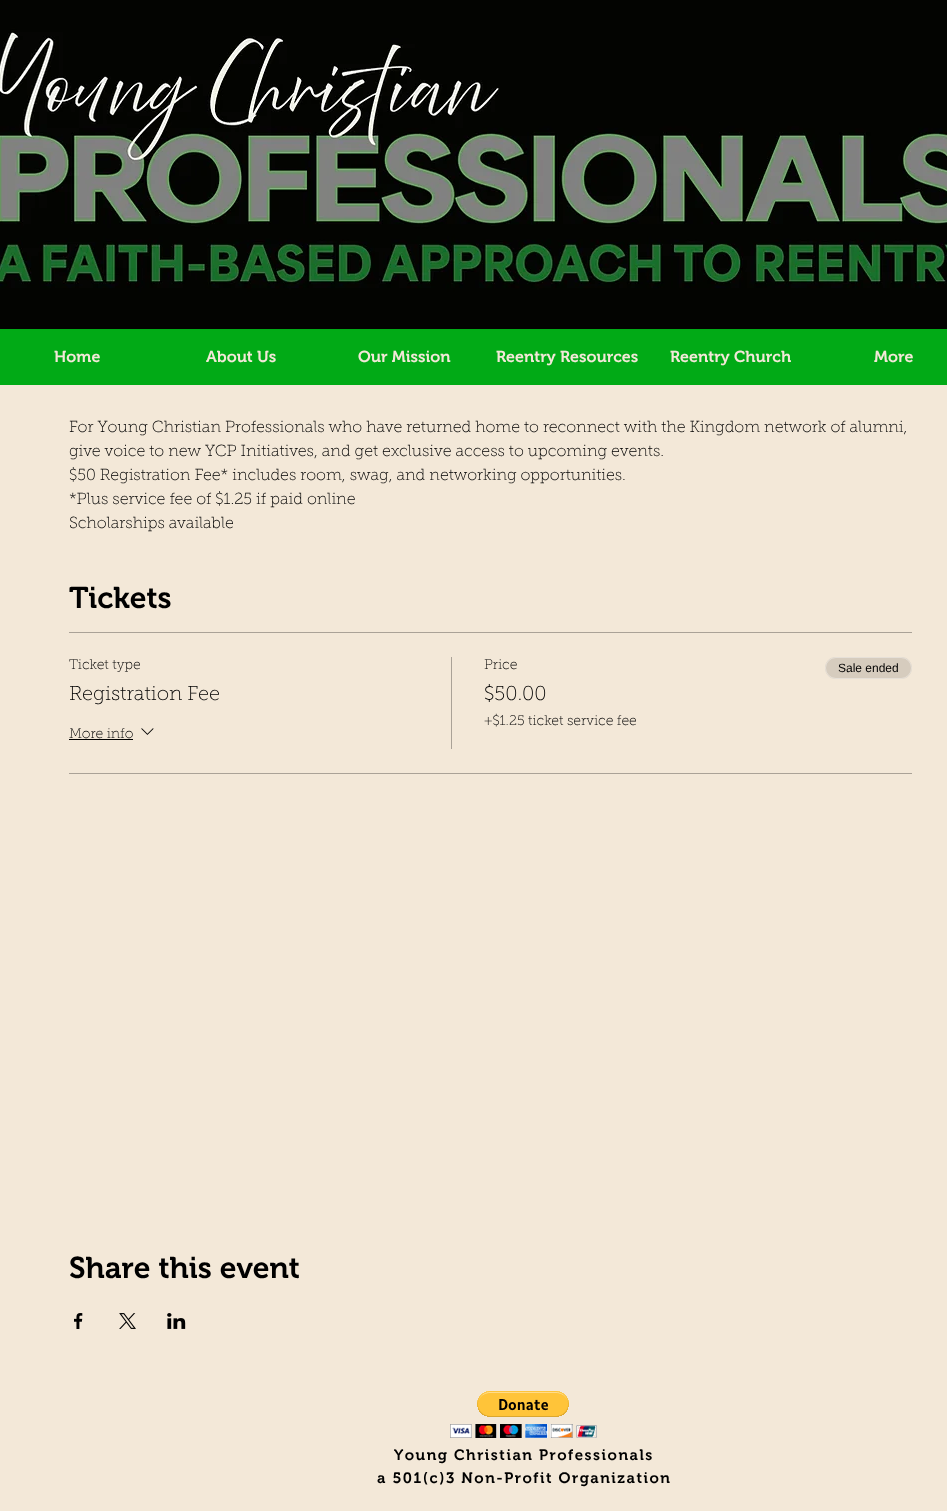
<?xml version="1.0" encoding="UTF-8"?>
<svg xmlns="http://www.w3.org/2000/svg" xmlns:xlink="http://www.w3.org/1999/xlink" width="947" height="1511">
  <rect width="100%" height="100%" fill="#f3e8d8" />
  <rect y="329" width="947" height="56" fill="#01aa16" />
  <image x="0" y="0" width="947" height="329" xlink:href="image1.png" />
  <rect x="69" y="632" width="843" height="1" fill="#aaa297" />
  <rect x="69" y="773" width="843" height="1" fill="#aaa297" />
  <rect x="69" y="739" width="64" height="1" fill="#000000" />
  <image x="141" y="728" width="13" height="7" xlink:href="image2.png" />
  <rect x="451" y="657" width="1" height="92" fill="#aaa297" />
  <rect x="825" y="657" width="87" height="22" rx="11" fill="#d6ccbe" />
  <rect x="825.5" y="657.5" width="86" height="21" rx="10.5" fill="none" stroke="#ffffff" stroke-opacity="0.4" />
  <image x="74" y="1313" width="9" height="16" xlink:href="image3.png" />
  <image x="119" y="1313" width="17" height="16" xlink:href="image4.png" />
  <image x="167" y="1313" width="19" height="16" xlink:href="image5.png" />
  <image x="450" y="1391" width="147" height="47" xlink:href="image6.png" />
  <text x="54" y="362" style="font-family: 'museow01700'; font-size: 16px; font-weight: 600; fill: #f3e8d8">Home</text>
  <text x="206" y="362" style="font-family: 'museow01700'; font-size: 16px; font-weight: 600; fill: #f3e8d8">About Us</text>
  <text x="358" y="362" style="font-family: 'museow01700'; font-size: 16px; font-weight: 600; fill: #f3e8d8">Our Mission</text>
  <text x="496" y="362" style="font-family: 'museow01700'; font-size: 16px; font-weight: 600; fill: #f3e8d8">Reentry Resources</text>
  <text x="670" y="362" style="font-family: 'museow01700'; font-size: 16px; font-weight: 600; fill: #f3e8d8">Reentry Church</text>
  <text x="874" y="362" style="font-family: 'museow01700'; font-size: 16px; font-weight: 600; fill: #f3e8d8">More</text>
  <text x="69" y="432" style="font-family: 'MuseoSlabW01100'; font-size: 16px; font-weight: 100; fill: #000000">For Young Christian Professionals who have returned home to reconnect with the Kingdom network of alumni,</text>
  <text x="69" y="456" style="font-family: 'MuseoSlabW01100'; font-size: 16px; font-weight: 100; fill: #000000">give voice to new YCP Initiatives, and get exclusive access to upcoming events.</text>
  <text x="69" y="480" style="font-family: 'MuseoSlabW01100'; font-size: 16px; font-weight: 100; fill: #000000">$50 Registration Fee* includes room, swag, and networking opportunities.</text>
  <text x="69" y="504" style="font-family: 'MuseoSlabW01100'; font-size: 16px; font-weight: 100; fill: #000000">*Plus service fee of $1.25 if paid online</text>
  <text x="69" y="528" style="font-family: 'MuseoSlabW01100'; font-size: 16px; font-weight: 100; fill: #000000">Scholarships available</text>
  <text x="69" y="608" style="font-family: 'museow01700'; font-size: 30px; font-weight: 600; fill: #000000">Tickets</text>
  <text x="69" y="669" style="font-family: 'MuseoSlabW01100'; font-size: 14px; font-weight: 100; fill: #000000">Ticket type</text>
  <text x="69" y="700" style="font-family: 'MuseoSlabW01100'; font-size: 20px; font-weight: 100; fill: #000000">Registration Fee</text>
  <text x="69" y="738" style="font-family: 'MuseoSlabW01100'; font-size: 14px; font-weight: 100; fill: #000000">More info</text>
  <text x="484" y="669" style="font-family: 'MuseoSlabW01100'; font-size: 14px; font-weight: 100; fill: #000000">Price</text>
  <text x="484" y="700" style="font-family: 'MuseoSlabW01100'; font-size: 20px; font-weight: 100; fill: #000000">$50.00</text>
  <text x="484" y="725" style="font-family: 'MuseoSlabW01100'; font-size: 14px; font-weight: 100; fill: #000000">+$1.25 ticket service fee</text>
  <text x="838" y="672" style="font-family: Liberation Sans; font-size: 12px; fill: #000000">Sale ended</text>
  <text x="69" y="1278" style="font-family: 'museow01700'; font-size: 30px; font-weight: 600; fill: #000000">Share this event</text>
  <text x="394" y="1460" style="font-family: 'museow01700'; font-size: 15px; font-weight: 600; letter-spacing: 1.5px; fill: #000000">Young Christian Professionals</text>
  <text x="377" y="1483" style="font-family: 'museow01700'; font-size: 15px; font-weight: 600; letter-spacing: 1.5px; fill: #000000">a 501(c)3 Non-Profit Organization</text>
</svg>
